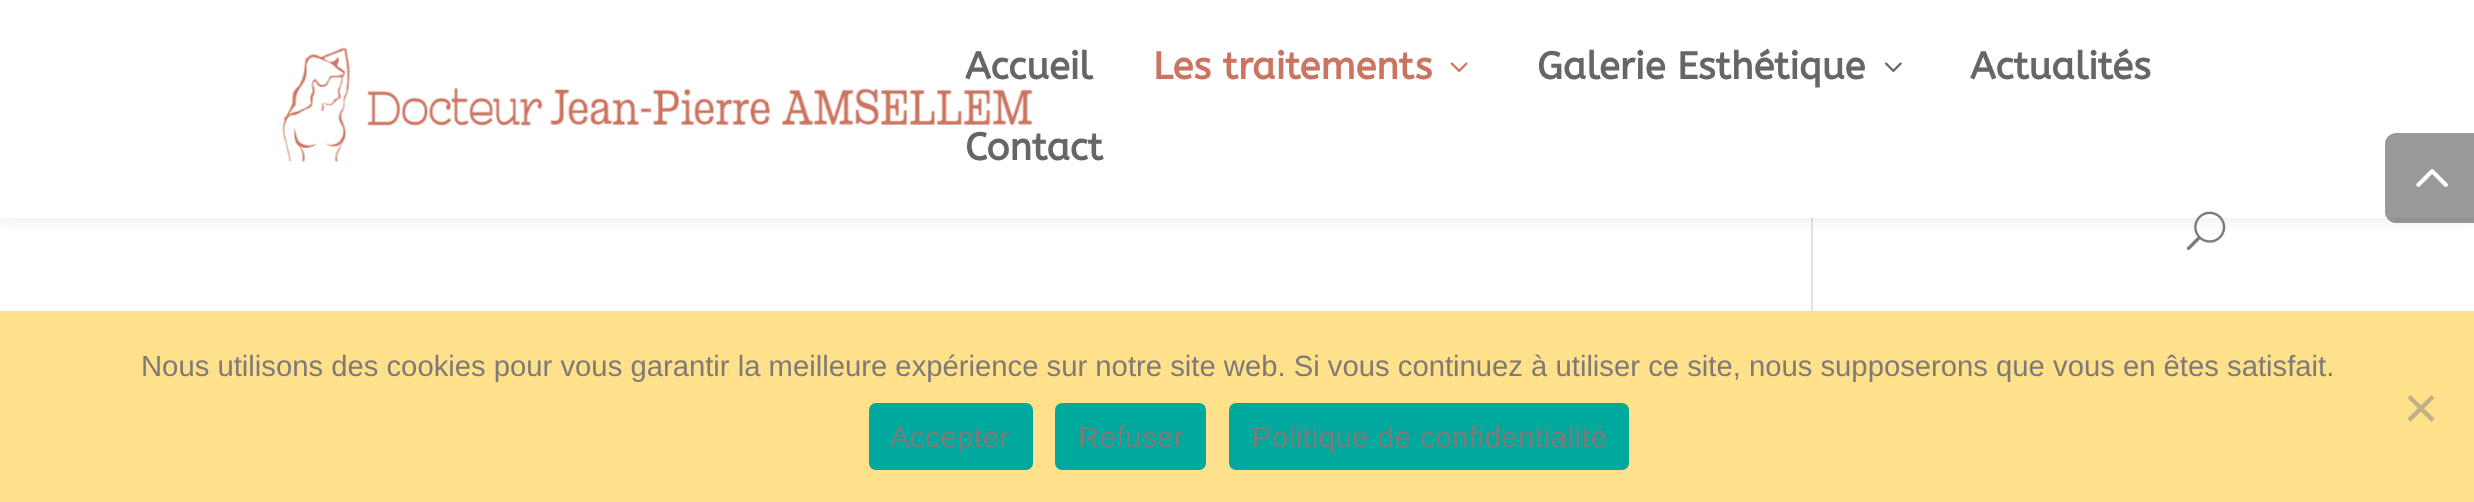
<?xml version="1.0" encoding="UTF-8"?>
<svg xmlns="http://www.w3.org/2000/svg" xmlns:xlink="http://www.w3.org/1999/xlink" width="2474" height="502">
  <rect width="100%" height="100%" fill="#ffffff" />
  <rect x="1811" y="218" width="2" height="93" fill="#e2e2e2" />
  <rect width="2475" height="218" fill="#000000" fill-opacity="0.1" filter="blur(8px)" />
  <rect width="2474" height="218" fill="#ffffff" />
  <image x="282" y="47" width="751" height="115" xlink:href="image1.png" />
  <image x="1450" y="62" width="18" height="10" xlink:href="image2.png" />
  <image x="1885" y="62" width="17" height="10" xlink:href="image3.png" />
  <image x="2186" y="211" width="40" height="39" xlink:href="image4.png" />
  <path d="M 2396 133 h 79 v 90 h -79 c -6 0 -11 -5 -11 -11 v -68 c 0 -6 5 -11 11 -11 z" fill="#000000" fill-opacity="0.4" />
  <image x="2416" y="169" width="32" height="18" xlink:href="image5.png" />
  <rect y="311" width="2474" height="191" fill="#ffe08b" />
  <path d="M 2431.5 395 l 3 3 l -24 24 l -3 -3.5 z" fill="#c0b086" />
  <path d="M 2407.5 398 l 3 -3 l 24 23.5 l -3 3.5 z" fill="#c0b086" />
  <rect x="869" y="403" width="164" height="67" rx="7" fill="#00a99d" />
  <rect x="1055" y="403" width="151" height="67" rx="7" fill="#00a99d" />
  <rect x="1229" y="403" width="400" height="67" rx="7" fill="#00a99d" />
  <text x="965" y="79" style="font-family: ABeeZee; font-size: 38.25px; font-weight: bold; fill: #666666">Accueil</text>
  <text x="1153" y="79" style="font-family: ABeeZee; font-size: 38.25px; font-weight: bold; fill: #cb7460">Les traitements</text>
  <text x="1537" y="79" style="font-family: ABeeZee; font-size: 38.25px; font-weight: bold; fill: #666666">Galerie Esthétique</text>
  <text x="1970" y="79" style="font-family: ABeeZee; font-size: 38.25px; font-weight: bold; fill: #666666">Actualités</text>
  <text x="965" y="160" style="font-family: ABeeZee; font-size: 38.25px; font-weight: bold; fill: #666666">Contact</text>
  <text x="141" y="376" style="font-family: Liberation Sans; font-size: 29.25px; fill: #7f7a77">Nous utilisons des cookies pour vous garantir la meilleure expérience sur notre site web. Si vous continuez à utiliser ce site, nous supposerons que vous en êtes satisfait.</text>
  <text x="890" y="447" style="font-family: Liberation Sans; font-size: 29.25px; letter-spacing: 0.55px; fill: #7f7a77">Accepter</text>
  <text x="1078" y="447" style="font-family: Liberation Sans; font-size: 29.25px; letter-spacing: 0.55px; fill: #7f7a77">Refuser</text>
  <text x="1252" y="447" style="font-family: Liberation Sans; font-size: 29.25px; letter-spacing: 0.55px; fill: #7f7a77">Politique de confidentialité</text>
</svg>
